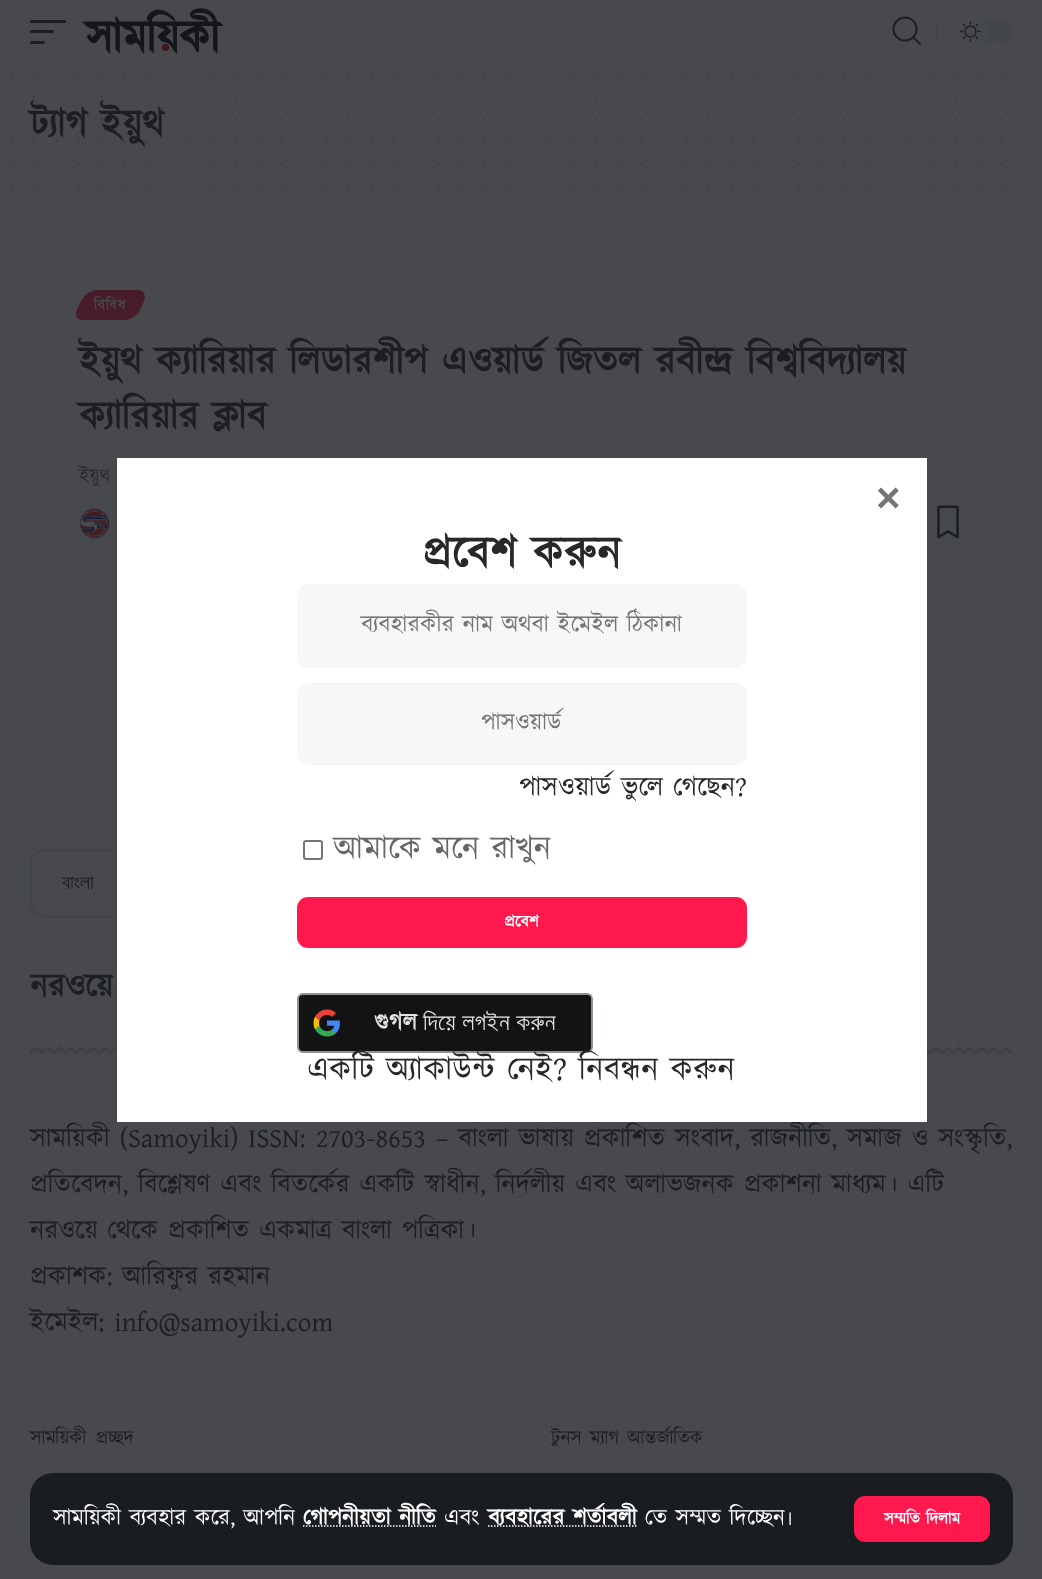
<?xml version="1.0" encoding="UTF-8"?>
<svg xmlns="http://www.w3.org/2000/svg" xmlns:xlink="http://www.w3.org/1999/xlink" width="1042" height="1579">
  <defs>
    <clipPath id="clip1"><rect x="30" y="963" width="983" height="50" /></clipPath>
  </defs>
  <rect width="100%" height="100%" fill="#47494d" />
  <path d="M 11.2 74.2 h 1012.9" fill="none" stroke="#414346" stroke-width="3" stroke-linecap="round" stroke-dasharray="0 22.5" />
  <path d="M 11.2 96.8 h 1012.9" fill="none" stroke="#414346" stroke-width="3" stroke-linecap="round" stroke-dasharray="0 22.5" />
  <path d="M 11.2 164.2 h 1012.9" fill="none" stroke="#414346" stroke-width="3" stroke-linecap="round" stroke-dasharray="0 22.5" />
  <path d="M 11.2 186.8 h 1012.9" fill="none" stroke="#414346" stroke-width="3" stroke-linecap="round" stroke-dasharray="0 22.5" />
  <path d="M 97 290 h 41 c 6 0 8 5 6 11 l -4 9 c -3 6 -10 10 -16 10 h -41 c -6 0 -9 -4 -6 -10 l 4 -9 c 3 -6 10 -11 16 -11 z" fill="#471b29" />
  <image x="79" y="508" width="31" height="31" xlink:href="image1.png" />
  <image x="937" y="505" width="22" height="34" xlink:href="image2.png" />
  <rect x="31" y="850" width="223" height="67" rx="14" fill="none" stroke="#424548" stroke-width="2" />
  <image x="30" y="1046" width="982" height="9" xlink:href="image3.png" />
  <rect x="30" y="20" width="36" height="3" rx="1.5" fill="#1c1e22" />
  <rect x="30" y="30" width="24" height="3" rx="1.5" fill="#1c1e22" />
  <rect x="30" y="41" width="15" height="3" rx="1.5" fill="#1c1e22" />
  <image x="81" y="8" width="143" height="46" xlink:href="image4.png" />
  <image x="892" y="16" width="29" height="29" xlink:href="image5.png" />
  <rect x="936" y="21" width="2" height="21" fill="#434548" />
  <rect x="953" y="21" width="60" height="21" rx="10.5" fill="#434649" />
  <circle cx="971" cy="32" r="18" fill="#47494d" />
  <image x="960" y="21" width="21" height="21" xlink:href="image6.png" />
  <rect x="30" y="1473" width="983" height="92" rx="23" fill="#191c20" />
  <path d="M 303 1526 h 133" fill="none" stroke="#ffffff" stroke-width="1.5" stroke-dasharray="1.5 1.5" />
  <path d="M 488 1526 h 148.5" fill="none" stroke="#ffffff" stroke-width="1.5" stroke-dasharray="1.5 1.5" />
  <rect x="854" y="1496" width="136" height="46" rx="11" fill="#ff184e" />
  <text x="30" y="137" style="font-family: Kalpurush; font-size: 39px; font-weight: bold; fill: #1c1e22">ট্যাগ ইয়ুথ</text>
  <path d="M 11.2 141.8 h 1012.9" fill="none" stroke="#1c1e22" stroke-opacity="0.15" stroke-width="3" stroke-linecap="round" stroke-dasharray="0 22.5" />
  <path d="M 11.2 119.2 h 1012.9" fill="none" stroke="#1c1e22" stroke-opacity="0.15" stroke-width="3" stroke-linecap="round" stroke-dasharray="0 22.5" />
  <text x="94" y="310" style="font-family: Kalpurush; font-size: 15px; font-weight: bold; letter-spacing: 1px; fill: #47494d">বিবিধ</text>
  <text x="79" y="374" style="font-family: Kalpurush; font-size: 39px; font-weight: bold; fill: #1c1e22">ইয়ুথ ক্যারিয়ার লিডারশীপ এওয়ার্ড জিতল রবীন্দ্র বিশ্ববিদ্যালয়</text>
  <text x="79" y="429" style="font-family: Kalpurush; font-size: 39px; font-weight: bold; fill: #1c1e22">ক্যারিয়ার ক্লাব</text>
  <text x="79" y="482" style="font-family: Kalpurush; font-size: 19.5px; fill: #282b2e">ইয়ুথ</text>
  <text x="62" y="889" style="font-family: FreeSans; font-size: 20px; fill: #1c1e22">বাংলা</text>
  <g clip-path="url(#clip1)">
    <text x="30" y="997" style="font-family: Kalpurush; font-size: 33px; font-weight: bold; fill: #1c1e22">নরওয়ে</text>
  </g>
  <text x="30" y="1147" style="font-family: Kalpurush; font-size: 27px; fill: #1c1e22">সাময়িকী (Samoyiki) ISSN: 2703-8653 – বাংলা ভাষায় প্রকাশিত সংবাদ, রাজনীতি, সমাজ ও সংস্কৃতি,</text>
  <text x="30" y="1193" style="font-family: Kalpurush; font-size: 27px; fill: #1c1e22">প্রতিবেদন, বিশ্লেষণ এবং বিতর্কের একটি স্বাধীন, নির্দলীয় এবং অলাভজনক প্রকাশনা মাধ্যম। এটি</text>
  <text x="30" y="1239" style="font-family: Kalpurush; font-size: 27px; fill: #1c1e22">নরওয়ে থেকে প্রকাশিত একমাত্র বাংলা পত্রিকা।</text>
  <text x="30" y="1285" style="font-family: Kalpurush; font-size: 27px; fill: #1c1e22">প্রকাশক: আরিফুর রহমান</text>
  <text x="30" y="1331" style="font-family: Kalpurush; font-size: 27px; fill: #1c1e22">ইমেইল: info@samoyiki.com</text>
  <text x="30" y="1444" word-spacing="3" style="font-family: Kalpurush; font-size: 19.5px; letter-spacing: -0.4px; fill: #1c1e22">সাময়িকী প্রচ্ছদ</text>
  <text x="551" y="1444" word-spacing="2" style="font-family: Kalpurush; font-size: 19.5px; letter-spacing: -0.4px; fill: #1c1e22">টুনস ম্যাগ আন্তর্জাতিক</text>
  <text x="53" y="1525" style="font-family: Kalpurush; font-size: 23.1px; fill: #ffffff">সাময়িকী ব্যবহার করে, আপনি</text>
  <text x="303" y="1525" style="font-family: Kalpurush; font-size: 23.1px; font-weight: bold; fill: #ffffff">গোপনীয়তা নীতি</text>
  <text x="444" y="1525" style="font-family: Kalpurush; font-size: 23.1px; fill: #ffffff">এবং</text>
  <text x="488" y="1525" style="font-family: Kalpurush; font-size: 23.1px; font-weight: bold; fill: #ffffff">ব্যবহারের শর্তাবলী</text>
  <text x="645" y="1525" style="font-family: Kalpurush; font-size: 23.1px; fill: #ffffff">তে সম্মত দিচ্ছেন৷</text>
  <text x="884" y="1524" style="font-family: Kalpurush; font-size: 16.5px; font-weight: bold; fill: #ffffff">সম্মতি দিলাম</text>
  <rect x="117" y="458" width="810" height="664" fill="#ffffff" />
  <text x="876" y="512" style="font-family: Liberation Sans; font-size: 42px; font-weight: bold; fill: #757575">×</text>
  <text x="422" y="568" style="font-family: Kalpurush; font-size: 45px; font-weight: bold; fill: #282828">প্রবেশ করুন</text>
  <rect x="297" y="584" width="450" height="84" rx="12" fill="#f7f7f7" />
  <text x="361" y="632" style="font-family: Kalpurush; font-size: 24px; fill: #757575">ব্যবহারকীর নাম অথবা ইমেইল ঠিকানা</text>
  <rect x="297" y="683" width="450" height="82" rx="12" fill="#f7f7f7" />
  <text x="481" y="730" style="font-family: Kalpurush; font-size: 24px; fill: #757575">পাসওয়ার্ড</text>
  <text x="519" y="796" style="font-family: Kalpurush; font-size: 27.5px; fill: #282828">পাসওয়ার্ড ভুলে গেছেন?</text>
  <rect x="304" y="841" width="18" height="18" rx="2" fill="none" stroke="#767676" stroke-width="2" />
  <text x="334" y="859" style="font-family: Kalpurush; font-size: 33px; fill: #666666">আমাকে মনে রাখুন</text>
  <rect x="297" y="897" width="450" height="51" rx="11" fill="#ff184e" />
  <text x="504" y="927" style="font-family: Kalpurush; font-size: 16.5px; font-weight: bold; fill: #ffffff">প্রবেশ</text>
  <rect x="298" y="994" width="294" height="58" rx="5" fill="#131314" stroke="#8e918f" stroke-width="2" />
  <image x="313" y="1009" width="27" height="28" xlink:href="image7.png" />
  <text x="374" y="1030" style="font-family: Kalpurush; font-size: 24px; font-weight: bold; letter-spacing: 0.4px; fill: #e3e3e3">গুগল</text>
  <text x="423" y="1030" style="font-family: FreeSans; font-size: 24px; letter-spacing: 0.4px; fill: #e3e3e3">দিয়ে লগইন করুন</text>
  <text x="307" y="1080" style="font-family: Kalpurush; font-size: 33px; fill: #282828">একটি অ্যাকাউন্ট নেই? নিবন্ধন করুন</text>
</svg>
